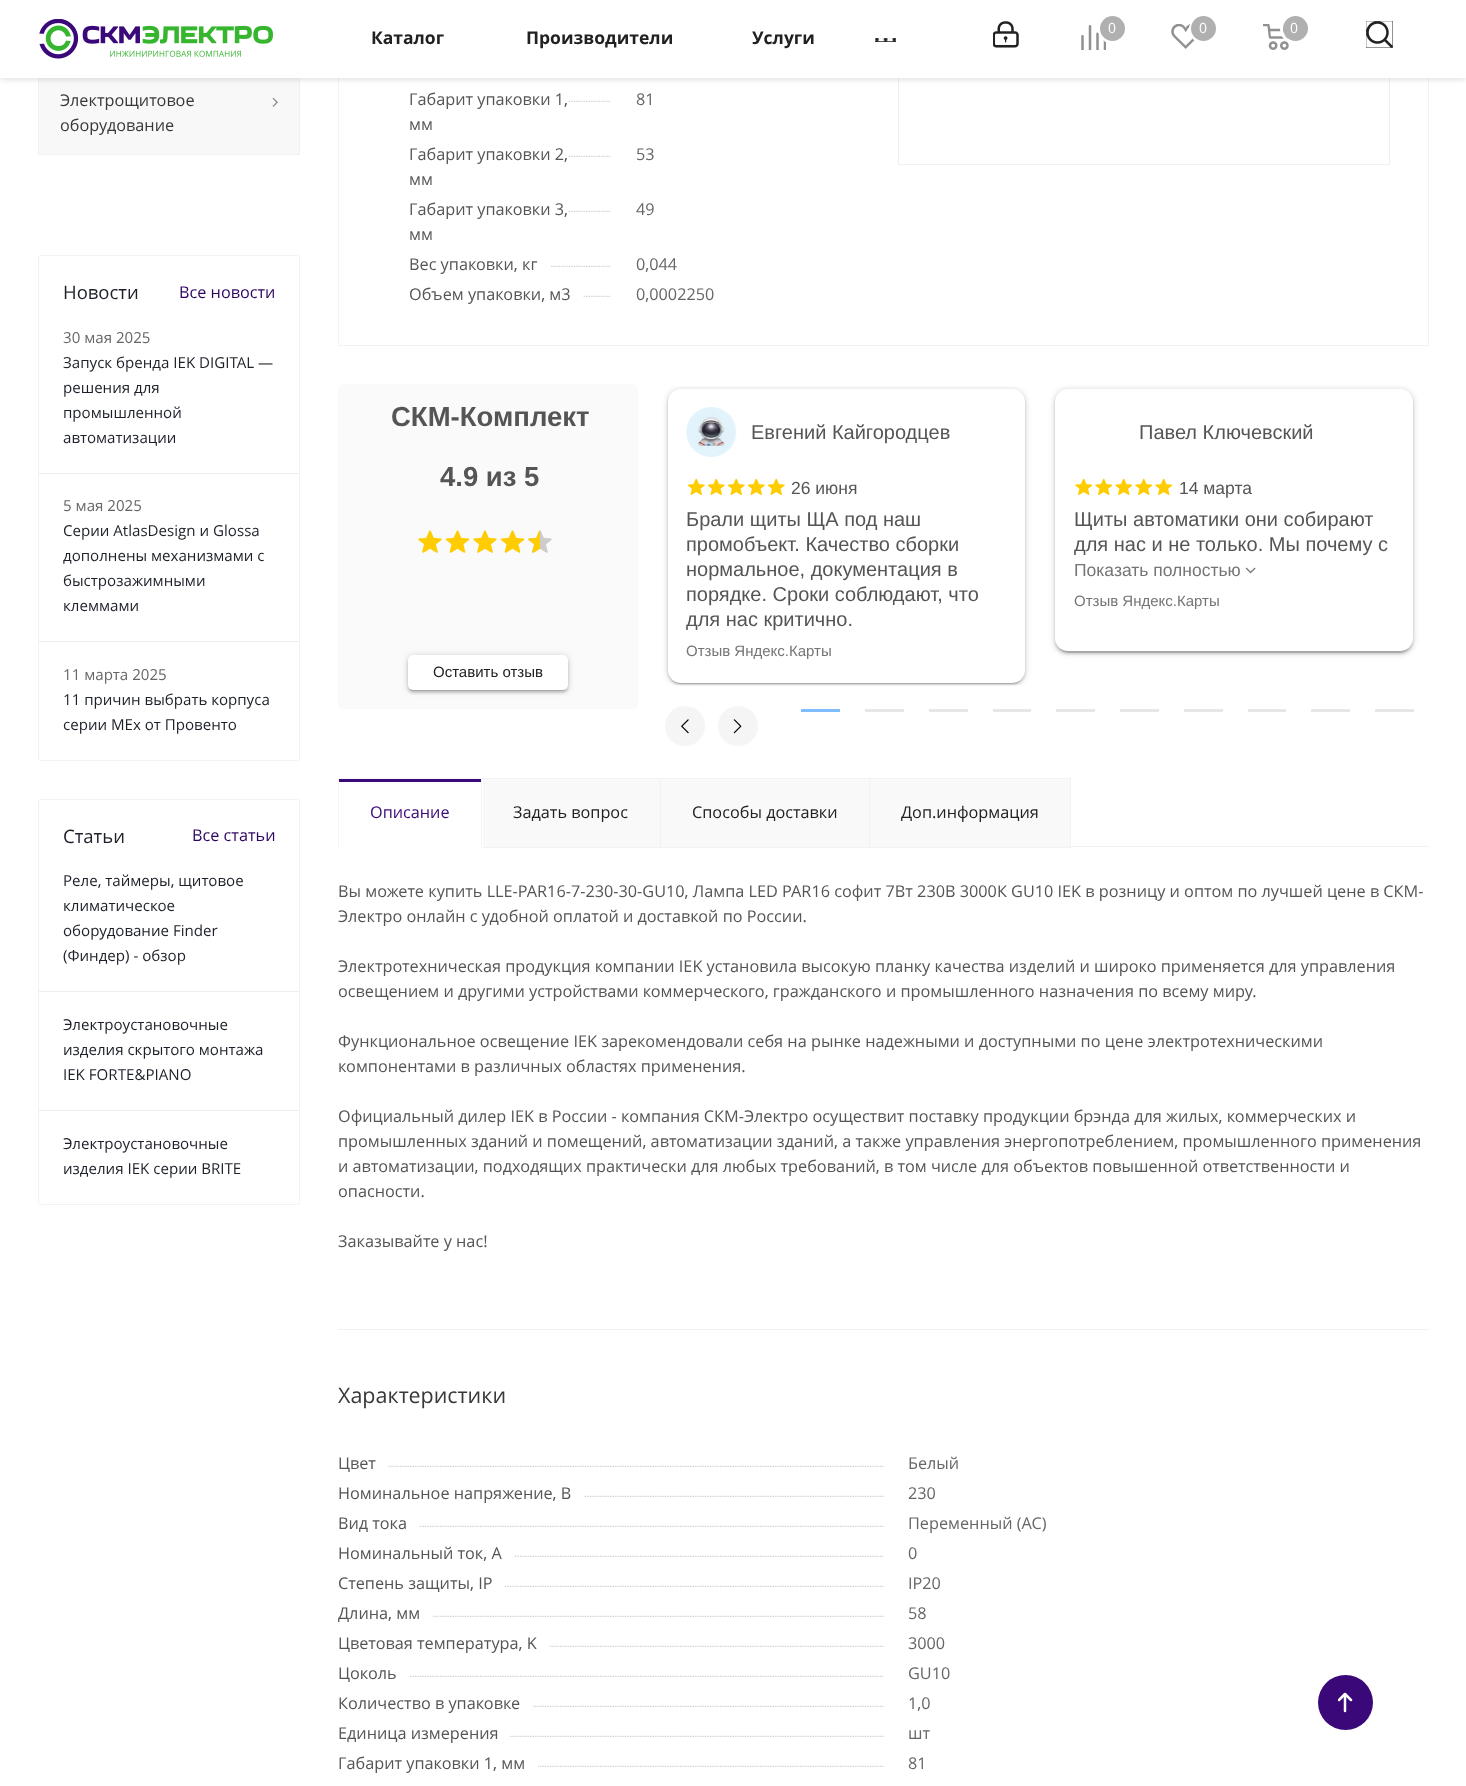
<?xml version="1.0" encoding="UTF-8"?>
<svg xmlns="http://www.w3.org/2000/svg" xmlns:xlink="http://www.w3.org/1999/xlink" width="1466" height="1786">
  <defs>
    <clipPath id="clip1"><rect x="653" y="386" width="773" height="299" /></clipPath>
    <clipPath id="clip2"><rect x="1338" y="1693" width="15" height="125" /></clipPath>
    <clipPath id="clip3"><rect x="338" y="1601" width="533" height="25" /></clipPath>
  </defs>
  <rect width="100%" height="100%" fill="#ffffff" />
  <rect x="39" y="78" width="260" height="76" fill="#f8f8f9" />
  <rect x="38.5" y="73.5" width="261" height="81" fill="none" stroke="#f2f2f2" />
  <rect x="338.5" y="-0.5" width="1090" height="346" fill="none" stroke="#f2f2f2" />
  <rect x="898.5" y="-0.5" width="491" height="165" fill="none" stroke="#f0f0f0" />
  <rect y="1" width="1466" height="78" fill="#000000" fill-opacity="0.14" filter="blur(3px)" />
  <rect width="1466" height="78" fill="#ffffff" />
  <image x="39" y="19" width="234" height="40" xlink:href="image1.png" />
  <image x="993" y="21" width="26" height="27" xlink:href="image2.png" />
  <image x="1081" y="25" width="25" height="25" xlink:href="image3.png" />
  <circle cx="1113" cy="29" r="13.5" fill="none" stroke="#ffffff" stroke-width="3" />
  <circle cx="1112.5" cy="28.5" r="12.5" fill="#b0b0b0" />
  <image x="1171" y="24" width="26" height="25" xlink:href="image4.png" />
  <circle cx="1204" cy="29" r="13.5" fill="none" stroke="#ffffff" stroke-width="3" />
  <circle cx="1203.5" cy="28.5" r="12.5" fill="#b0b0b0" />
  <image x="1263" y="24" width="26" height="26" xlink:href="image5.png" />
  <circle cx="1295" cy="29" r="13.5" fill="none" stroke="#ffffff" stroke-width="3" />
  <circle cx="1295.5" cy="28.5" r="12.5" fill="#b0b0b0" />
  <rect x="1366" y="21" width="27" height="27" fill="#222222" />
  <image x="1366" y="21" width="27" height="27" xlink:href="image6.png" />
  <rect x="875" y="38" width="21" height="4" fill="#222222" />
  <image x="875" y="38" width="21" height="4" xlink:href="image7.png" />
  <image x="272" y="97" width="6" height="10" xlink:href="image8.png" />
  <rect x="38.5" y="255.5" width="261" height="505" rx="2" fill="none" stroke="#f2f2f2" />
  <rect x="39" y="473" width="260" height="1" fill="#ebeef1" />
  <rect x="39" y="641" width="260" height="1" fill="#ebeef1" />
  <rect x="38.5" y="799.5" width="261" height="405" rx="2" fill="none" stroke="#f2f2f2" />
  <rect x="39" y="991" width="260" height="1" fill="#ebeef1" />
  <rect x="39" y="1110" width="260" height="1" fill="#ebeef1" />
  <image x="568" y="100" width="43" height="2" xlink:href="image9.png" />
  <image x="568" y="155" width="43" height="2" xlink:href="image9.png" />
  <image x="568" y="210" width="43" height="2" xlink:href="image9.png" />
  <image x="550" y="265" width="61" height="2" xlink:href="image10.png" />
  <image x="583" y="295" width="28" height="2" xlink:href="image11.png" />
  <rect x="338" y="384" width="300" height="325" rx="5" fill="#fafafa" />
  <image x="418" y="530" width="24" height="23" xlink:href="image12.png" />
  <image x="445" y="530" width="25" height="23" xlink:href="image13.png" />
  <image x="473" y="530" width="24" height="23" xlink:href="image12.png" />
  <image x="500" y="530" width="25" height="23" xlink:href="image13.png" />
  <image x="528" y="530" width="24" height="23" xlink:href="image14.png" />
  <rect x="408" y="656" width="160" height="35" rx="5" fill="#000000" fill-opacity="0.2" filter="blur(3px)" />
  <rect x="410" y="661" width="155" height="30" rx="2.5" fill="#000000" fill-opacity="0.12" filter="blur(0.5px)" />
  <rect x="408" y="658" width="160" height="35" rx="5" fill="#000000" fill-opacity="0.14" filter="blur(1px)" />
  <rect x="408" y="655" width="160" height="35" rx="5" fill="#ffffff" />
  <g clip-path="url(#clip1)">
    <rect x="668" y="390" width="357" height="294" rx="13" fill="#000000" fill-opacity="0.2" filter="blur(3px)" />
  </g>
  <rect x="670" y="395" width="353" height="289" rx="10" fill="#000000" fill-opacity="0.12" filter="blur(0.5px)" />
  <rect x="668" y="391" width="357" height="294" rx="13" fill="#000000" fill-opacity="0.14" filter="blur(1px)" />
  <rect x="668" y="389" width="357" height="294" rx="13" fill="#ffffff" />
  <image x="686" y="407" width="51" height="50" xlink:href="image15.png" />
  <image x="687" y="478" width="18" height="17" xlink:href="image16.png" />
  <image x="707" y="478" width="18" height="17" xlink:href="image16.png" />
  <image x="727" y="478" width="18" height="17" xlink:href="image16.png" />
  <image x="747" y="478" width="18" height="17" xlink:href="image16.png" />
  <image x="767" y="478" width="18" height="17" xlink:href="image16.png" />
  <rect x="1055" y="390" width="358" height="263" rx="13" fill="#000000" fill-opacity="0.2" filter="blur(3px)" />
  <rect x="1058" y="395" width="352" height="258" rx="10" fill="#000000" fill-opacity="0.12" filter="blur(0.5px)" />
  <rect x="1055" y="391" width="358" height="263" rx="13" fill="#000000" fill-opacity="0.14" filter="blur(1px)" />
  <rect x="1055" y="389" width="358" height="262" rx="13" fill="#ffffff" />
  <image x="1075" y="478" width="18" height="17" xlink:href="image17.png" />
  <image x="1095" y="478" width="18" height="17" xlink:href="image17.png" />
  <image x="1115" y="478" width="18" height="17" xlink:href="image17.png" />
  <image x="1135" y="478" width="18" height="17" xlink:href="image17.png" />
  <image x="1155" y="478" width="18" height="17" xlink:href="image17.png" />
  <image x="1245" y="567" width="11" height="7" xlink:href="image18.png" />
  <circle cx="685" cy="726" r="20" fill="#f5f5f5" />
  <image x="681" y="719" width="8" height="15" xlink:href="image19.png" />
  <circle cx="738" cy="726" r="20" fill="#f5f5f5" />
  <image x="733" y="719" width="9" height="15" xlink:href="image20.png" />
  <rect x="801" y="709" width="39" height="3" fill="#80bdff" />
  <rect x="865" y="709" width="39" height="3" fill="#e6e6e6" />
  <rect x="929" y="709" width="39" height="3" fill="#e6e6e6" />
  <rect x="993" y="709" width="38" height="3" fill="#e6e6e6" />
  <rect x="1056" y="709" width="39" height="3" fill="#e6e6e6" />
  <rect x="1120" y="709" width="39" height="3" fill="#e6e6e6" />
  <rect x="1184" y="709" width="39" height="3" fill="#e6e6e6" />
  <rect x="1248" y="709" width="38" height="3" fill="#e6e6e6" />
  <rect x="1311" y="709" width="39" height="3" fill="#e6e6e6" />
  <rect x="1375" y="709" width="39" height="3" fill="#e6e6e6" />
  <rect x="1071" y="846" width="358" height="1" fill="#f2f2f2" />
  <rect x="483" y="779" width="177" height="68" fill="#f9f9fa" />
  <rect x="481.5" y="778.5" width="179" height="69" fill="none" stroke="#f2f2f2" />
  <rect x="481" y="779" width="2" height="69" fill="#ffffff" />
  <rect x="338" y="778" width="145" height="1" fill="#f5f5f5" />
  <rect x="481" y="778" width="1" height="70" fill="#f5f5f5" />
  <rect x="481" y="846" width="2" height="1" fill="#ffffff" />
  <rect x="338" y="778" width="1" height="70" fill="#f5f5f5" />
  <rect x="339" y="779" width="142" height="3" fill="#3a0879" />
  <rect x="660.5" y="778.5" width="209" height="69" fill="#f9f9fa" stroke="#f2f2f2" />
  <rect x="869.5" y="778.5" width="201" height="69" fill="#f9f9fa" stroke="#f2f2f2" />
  <rect x="338" y="1329" width="1091" height="1" fill="#f2f2f2" />
  <image x="388" y="1465" width="496" height="2" xlink:href="image21.png" />
  <image x="584" y="1495" width="300" height="2" xlink:href="image22.png" />
  <image x="419" y="1525" width="465" height="2" xlink:href="image23.png" />
  <image x="514" y="1555" width="370" height="2" xlink:href="image24.png" />
  <image x="505" y="1585" width="379" height="2" xlink:href="image25.png" />
  <image x="433" y="1615" width="451" height="2" xlink:href="image26.png" />
  <image x="549" y="1645" width="335" height="2" xlink:href="image27.png" />
  <image x="409" y="1675" width="475" height="2" xlink:href="image28.png" />
  <image x="533" y="1705" width="351" height="2" xlink:href="image29.png" />
  <image x="510" y="1735" width="374" height="2" xlink:href="image30.png" />
  <image x="538" y="1765" width="346" height="2" xlink:href="image31.png" />
  <circle cx="1345.5" cy="1702.5" r="27.5" fill="#3a0879" />
  <path d="M 1345 1694 v 17" fill="none" stroke="#ffffff" stroke-width="2.5" stroke-linecap="round" stroke-linejoin="round" />
  <g clip-path="url(#clip2)">
    <path d="M 1339 1700 l 6 -6 l 6 6" fill="none" stroke="#ffffff" stroke-width="2.5" stroke-linecap="round" stroke-linejoin="round" />
  </g>
  <text x="1108" y="33" style="font-family: Open Sans; font-size: 14px; fill: #ffffff">0</text>
  <text x="1199" y="33" style="font-family: Open Sans; font-size: 14px; fill: #ffffff">0</text>
  <text x="1290" y="33" style="font-family: Open Sans; font-size: 14px; fill: #ffffff">0</text>
  <text x="371" y="44" style="font-family: Open Sans; font-size: 17.5px; font-weight: bold; fill: #212121">Каталог</text>
  <text x="526" y="44" style="font-family: Open Sans; font-size: 17.5px; font-weight: bold; fill: #212121">Производители</text>
  <text x="752" y="44" style="font-family: Open Sans; font-size: 17.5px; font-weight: bold; fill: #212121">Услуги</text>
  <text x="60" y="106" style="font-family: Open Sans; font-size: 16.25px; fill: #383838">Электрощитовое</text>
  <text x="60" y="131" style="font-family: Open Sans; font-size: 16.25px; fill: #383838">оборудование</text>
  <text x="63" y="299" style="font-family: Open Sans; font-size: 18.5px; fill: #1d2029">Новости</text>
  <text x="179" y="298" style="font-family: Open Sans; font-size: 16.25px; fill: #2e0662">Все новости</text>
  <text x="63" y="343" style="font-family: Open Sans; font-size: 15.1px; fill: #666666">30 мая 2025</text>
  <text x="63" y="368" style="font-family: Open Sans; font-size: 15.1px; fill: #1d2029">Запуск бренда IEK DIGITAL —</text>
  <text x="63" y="393" style="font-family: Open Sans; font-size: 15.1px; fill: #1d2029">решения для</text>
  <text x="63" y="418" style="font-family: Open Sans; font-size: 15.1px; fill: #1d2029">промышленной</text>
  <text x="63" y="443" style="font-family: Open Sans; font-size: 15.1px; fill: #1d2029">автоматизации</text>
  <text x="63" y="511" style="font-family: Open Sans; font-size: 15.1px; fill: #666666">5 мая 2025</text>
  <text x="63" y="536" style="font-family: Open Sans; font-size: 15.1px; fill: #1d2029">Серии AtlasDesign и Glossa</text>
  <text x="63" y="561" style="font-family: Open Sans; font-size: 15.1px; fill: #1d2029">дополнены механизмами с</text>
  <text x="63" y="586" style="font-family: Open Sans; font-size: 15.1px; fill: #1d2029">быстрозажимными</text>
  <text x="63" y="611" style="font-family: Open Sans; font-size: 15.1px; fill: #1d2029">клеммами</text>
  <text x="63" y="680" style="font-family: Open Sans; font-size: 15.1px; fill: #666666">11 марта 2025</text>
  <text x="63" y="705" style="font-family: Open Sans; font-size: 15.1px; fill: #1d2029">11 причин выбрать корпуса</text>
  <text x="63" y="730" style="font-family: Open Sans; font-size: 15.1px; fill: #1d2029">серии MEx от Провенто</text>
  <text x="63" y="843" style="font-family: Open Sans; font-size: 18.5px; fill: #1d2029">Статьи</text>
  <text x="192" y="841" style="font-family: Open Sans; font-size: 16.25px; fill: #2e0662">Все статьи</text>
  <text x="63" y="886" style="font-family: Open Sans; font-size: 15.1px; fill: #1d2029">Реле, таймеры, щитовое</text>
  <text x="63" y="911" style="font-family: Open Sans; font-size: 15.1px; fill: #1d2029">климатическое</text>
  <text x="63" y="936" style="font-family: Open Sans; font-size: 15.1px; fill: #1d2029">оборудование Finder</text>
  <text x="63" y="961" style="font-family: Open Sans; font-size: 15.1px; fill: #1d2029">(Финдер) - обзор</text>
  <text x="63" y="1030" style="font-family: Open Sans; font-size: 15.1px; fill: #1d2029">Электроустановочные</text>
  <text x="63" y="1055" style="font-family: Open Sans; font-size: 15.1px; fill: #1d2029">изделия скрытого монтажа</text>
  <text x="63" y="1080" style="font-family: Open Sans; font-size: 15.1px; fill: #1d2029">IEK FORTE&amp;PIANO</text>
  <text x="63" y="1149" style="font-family: Open Sans; font-size: 15.1px; fill: #1d2029">Электроустановочные</text>
  <text x="63" y="1174" style="font-family: Open Sans; font-size: 15.1px; fill: #1d2029">изделия IEK серии BRITE</text>
  <text x="409" y="105" style="font-family: Open Sans; font-size: 16.25px; fill: #555555">Габарит упаковки 1,</text>
  <text x="409" y="130" style="font-family: Open Sans; font-size: 16.25px; fill: #555555">мм</text>
  <text x="636" y="105" style="font-family: Open Sans; font-size: 16.25px; fill: #666666">81</text>
  <text x="409" y="160" style="font-family: Open Sans; font-size: 16.25px; fill: #555555">Габарит упаковки 2,</text>
  <text x="409" y="185" style="font-family: Open Sans; font-size: 16.25px; fill: #555555">мм</text>
  <text x="636" y="160" style="font-family: Open Sans; font-size: 16.25px; fill: #666666">53</text>
  <text x="409" y="215" style="font-family: Open Sans; font-size: 16.25px; fill: #555555">Габарит упаковки 3,</text>
  <text x="409" y="240" style="font-family: Open Sans; font-size: 16.25px; fill: #555555">мм</text>
  <text x="636" y="215" style="font-family: Open Sans; font-size: 16.25px; fill: #666666">49</text>
  <text x="409" y="270" style="font-family: Open Sans; font-size: 16.25px; fill: #555555">Вес упаковки, кг</text>
  <text x="636" y="270" style="font-family: Open Sans; font-size: 16.25px; fill: #666666">0,044</text>
  <text x="409" y="300" style="font-family: Open Sans; font-size: 16.25px; fill: #555555">Объем упаковки, м3</text>
  <text x="636" y="300" style="font-family: Open Sans; font-size: 16.25px; fill: #666666">0,0002250</text>
  <text x="391" y="426" style="font-family: Liberation Sans; font-size: 27.5px; font-weight: bold; fill: #555555">СКМ-Комплект</text>
  <text x="440" y="486" style="font-family: Liberation Sans; font-size: 27.5px; font-weight: bold; fill: #555555">4.9 из 5</text>
  <text x="433" y="677" style="font-family: Liberation Sans; font-size: 15px; fill: #212121">Оставить отзыв</text>
  <text x="751" y="439" style="font-family: Liberation Sans; font-size: 20px; fill: #555555">Евгений Кайгородцев</text>
  <text x="791" y="494" style="font-family: Liberation Sans; font-size: 17.5px; fill: #555555">26 июня</text>
  <text x="686" y="526" style="font-family: Liberation Sans; font-size: 20px; fill: #555555">Брали щиты ЩА под наш</text>
  <text x="686" y="551" style="font-family: Liberation Sans; font-size: 20px; fill: #555555">промобъект. Качество сборки</text>
  <text x="686" y="576" style="font-family: Liberation Sans; font-size: 20px; fill: #555555">нормальное, документация в</text>
  <text x="686" y="601" style="font-family: Liberation Sans; font-size: 20px; fill: #555555">порядке. Сроки соблюдают, что</text>
  <text x="686" y="626" style="font-family: Liberation Sans; font-size: 20px; fill: #555555">для нас критично.</text>
  <text x="686" y="656" style="font-family: Liberation Sans; font-size: 15px; fill: #757575">Отзыв Яндекс.Карты</text>
  <text x="1139" y="439" style="font-family: Liberation Sans; font-size: 20px; fill: #555555">Павел Ключевский</text>
  <text x="1179" y="494" style="font-family: Liberation Sans; font-size: 17.5px; fill: #555555">14 марта</text>
  <text x="1074" y="526" style="font-family: Liberation Sans; font-size: 20px; fill: #555555">Щиты автоматики они собирают</text>
  <text x="1074" y="551" style="font-family: Liberation Sans; font-size: 20px; fill: #555555">для нас и не только. Мы почему с</text>
  <text x="1074" y="576" style="font-family: Liberation Sans; font-size: 17.5px; fill: #757575">Показать полностью</text>
  <text x="1074" y="606" style="font-family: Liberation Sans; font-size: 15px; fill: #757575">Отзыв Яндекс.Карты</text>
  <text x="370" y="818" style="font-family: Open Sans; font-size: 16.25px; fill: #3a0879">Описание</text>
  <text x="513" y="818" style="font-family: Open Sans; font-size: 16.25px; fill: #212121">Задать вопрос</text>
  <text x="692" y="818" style="font-family: Open Sans; font-size: 16.25px; fill: #212121">Способы доставки</text>
  <text x="901" y="818" style="font-family: Open Sans; font-size: 16.25px; fill: #212121">Доп.информация</text>
  <text x="338" y="897" style="font-family: Open Sans; font-size: 16.25px; fill: #555555">Вы можете купить LLE-PAR16-7-230-30-GU10, Лампа LED PAR16 софит 7Вт 230В 3000К GU10 IEK в розницу и оптом по лучшей цене в СКМ-</text>
  <text x="338" y="922" style="font-family: Open Sans; font-size: 16.25px; fill: #555555">Электро онлайн с удобной оплатой и доставкой по России.</text>
  <text x="338" y="972" style="font-family: Open Sans; font-size: 16.25px; fill: #555555">Электротехническая продукция компании IEK установила высокую планку качества изделий и широко применяется для управления</text>
  <text x="338" y="997" style="font-family: Open Sans; font-size: 16.25px; fill: #555555">освещением и другими устройствами коммерческого, гражданского и промышленного назначения по всему миру.</text>
  <text x="338" y="1047" style="font-family: Open Sans; font-size: 16.25px; fill: #555555">Функциональное освещение IEK зарекомендовали себя на рынке надежными и доступными по цене электротехническими</text>
  <text x="338" y="1072" style="font-family: Open Sans; font-size: 16.25px; fill: #555555">компонентами в различных областях применения.</text>
  <text x="338" y="1122" style="font-family: Open Sans; font-size: 16.25px; fill: #555555">Официальный дилер IEK в России - компания СКМ-Электро осуществит поставку продукции брэнда для жилых, коммерческих и</text>
  <text x="338" y="1147" style="font-family: Open Sans; font-size: 16.25px; fill: #555555">промышленных зданий и помещений, автоматизации зданий, а также управления энергопотреблением, промышленного применения</text>
  <text x="338" y="1172" style="font-family: Open Sans; font-size: 16.25px; fill: #555555">и автоматизации, подходящих практически для любых требований, в том числе для объектов повышенной ответственности и</text>
  <text x="338" y="1197" style="font-family: Open Sans; font-size: 16.25px; fill: #555555">опасности.</text>
  <text x="338" y="1247" style="font-family: Open Sans; font-size: 16.25px; fill: #555555">Заказывайте у нас!</text>
  <text x="338" y="1403" style="font-family: Open Sans; font-size: 21.5px; fill: #383838">Характеристики</text>
  <text x="338" y="1469" style="font-family: Open Sans; font-size: 16.25px; fill: #555555">Цвет</text>
  <text x="908" y="1469" style="font-family: Open Sans; font-size: 16.25px; fill: #666666">Белый</text>
  <text x="338" y="1499" style="font-family: Open Sans; font-size: 16.25px; fill: #555555">Номинальное напряжение, В</text>
  <text x="908" y="1499" style="font-family: Open Sans; font-size: 16.25px; fill: #666666">230</text>
  <text x="338" y="1529" style="font-family: Open Sans; font-size: 16.25px; fill: #555555">Вид тока</text>
  <text x="908" y="1529" style="font-family: Open Sans; font-size: 16.25px; fill: #666666">Переменный (AC)</text>
  <text x="338" y="1559" style="font-family: Open Sans; font-size: 16.25px; fill: #555555">Номинальный ток, А</text>
  <text x="908" y="1559" style="font-family: Open Sans; font-size: 16.25px; fill: #666666">0</text>
  <text x="338" y="1589" style="font-family: Open Sans; font-size: 16.25px; fill: #555555">Степень защиты, IP</text>
  <text x="908" y="1589" style="font-family: Open Sans; font-size: 16.25px; fill: #666666">IP20</text>
  <g clip-path="url(#clip3)">
    <text x="338" y="1619" style="font-family: Open Sans; font-size: 16.25px; fill: #555555">Длина, мм</text>
  </g>
  <text x="908" y="1619" style="font-family: Open Sans; font-size: 16.25px; fill: #666666">58</text>
  <text x="338" y="1649" style="font-family: Open Sans; font-size: 16.25px; fill: #555555">Цветовая температура, K</text>
  <text x="908" y="1649" style="font-family: Open Sans; font-size: 16.25px; fill: #666666">3000</text>
  <text x="338" y="1679" style="font-family: Open Sans; font-size: 16.25px; fill: #555555">Цоколь</text>
  <text x="908" y="1679" style="font-family: Open Sans; font-size: 16.25px; fill: #666666">GU10</text>
  <text x="338" y="1709" style="font-family: Open Sans; font-size: 16.25px; fill: #555555">Количество в упаковке</text>
  <text x="908" y="1709" style="font-family: Open Sans; font-size: 16.25px; fill: #666666">1,0</text>
  <text x="338" y="1739" style="font-family: Open Sans; font-size: 16.25px; fill: #555555">Единица измерения</text>
  <text x="908" y="1739" style="font-family: Open Sans; font-size: 16.25px; fill: #666666">шт</text>
  <text x="338" y="1769" style="font-family: Open Sans; font-size: 16.25px; fill: #555555">Габарит упаковки 1, мм</text>
  <text x="908" y="1769" style="font-family: Open Sans; font-size: 16.25px; fill: #666666">81</text>
</svg>
